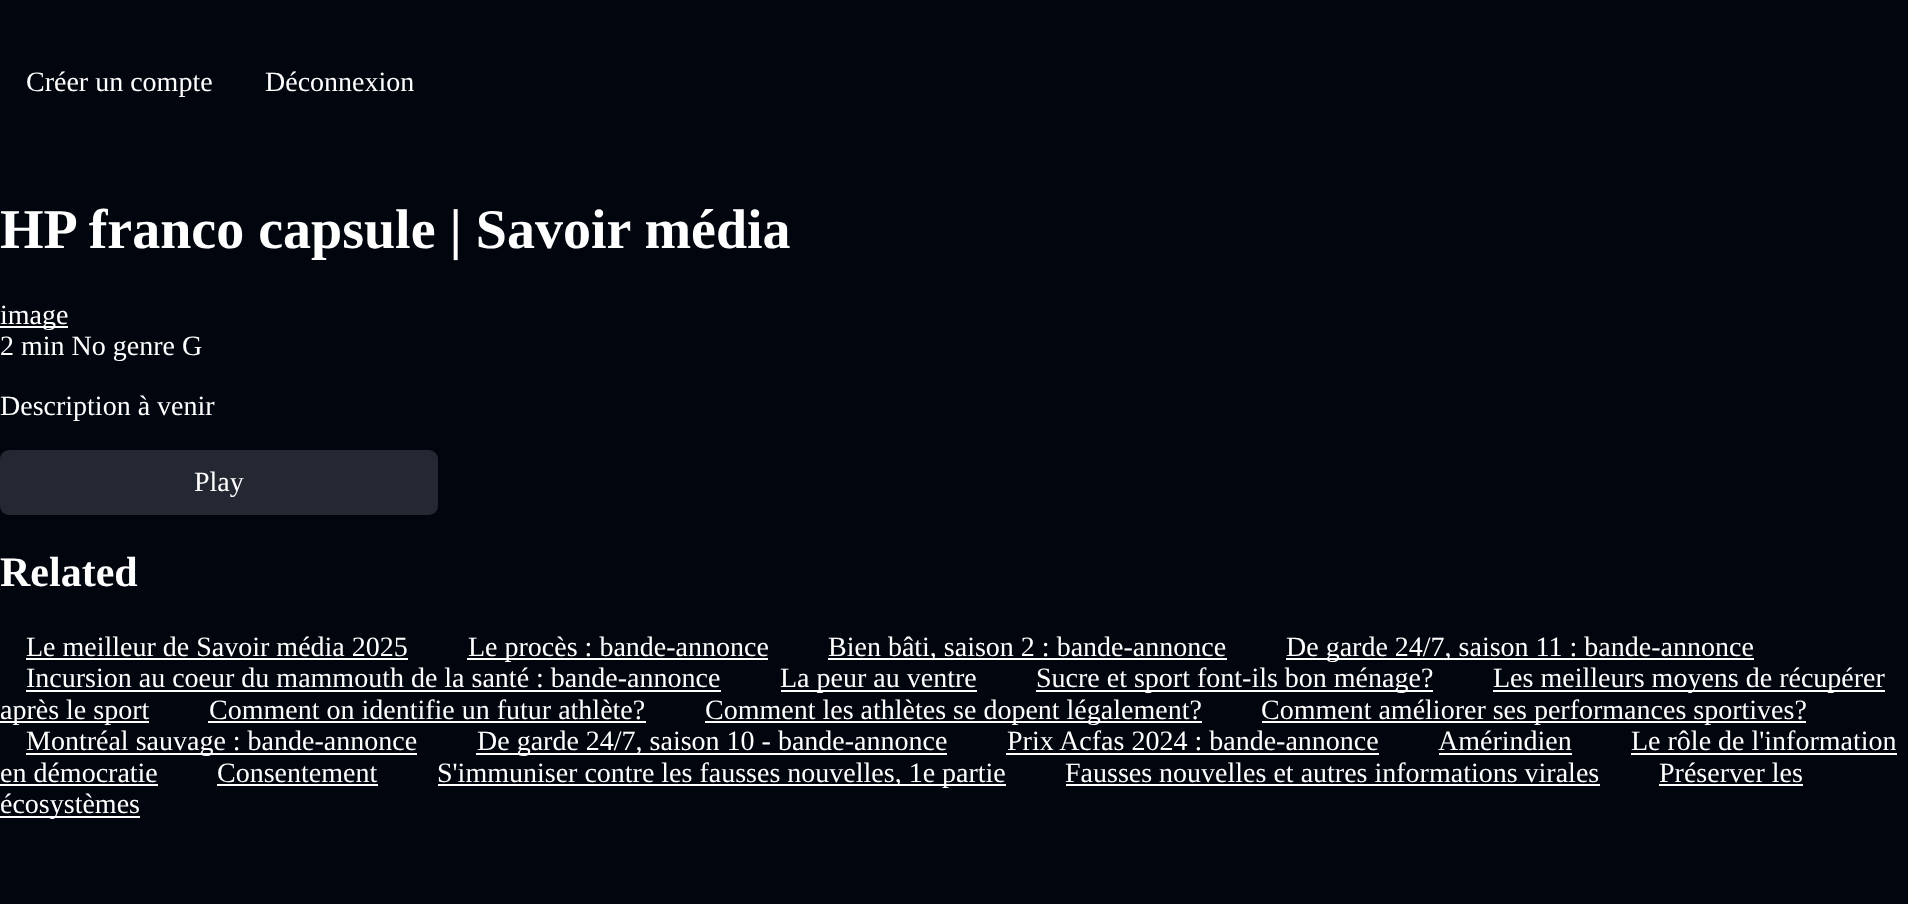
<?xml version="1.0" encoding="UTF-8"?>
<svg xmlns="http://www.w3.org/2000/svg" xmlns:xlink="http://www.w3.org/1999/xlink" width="1908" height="904">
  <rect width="100%" height="100%" fill="#01050e" />
  <rect y="326" width="68" height="2" fill="#ffffff" />
  <rect y="450" width="438" height="65" rx="9" fill="#242832" />
  <rect x="26" y="658" width="382" height="2" fill="#ffffff" />
  <rect x="467" y="658" width="301" height="2" fill="#ffffff" />
  <rect x="828" y="658" width="399" height="2" fill="#ffffff" />
  <rect x="1286" y="658" width="468" height="2" fill="#ffffff" />
  <rect x="26" y="690" width="695" height="2" fill="#ffffff" />
  <rect x="781" y="690" width="196" height="2" fill="#ffffff" />
  <rect x="1036" y="690" width="397" height="2" fill="#ffffff" />
  <rect x="1493" y="690" width="392" height="2" fill="#ffffff" />
  <rect y="721" width="149" height="2" fill="#ffffff" />
  <rect x="208" y="721" width="438" height="2" fill="#ffffff" />
  <rect x="705" y="721" width="497" height="2" fill="#ffffff" />
  <rect x="1262" y="721" width="544" height="2" fill="#ffffff" />
  <rect x="26" y="753" width="391" height="2" fill="#ffffff" />
  <rect x="476" y="753" width="471" height="2" fill="#ffffff" />
  <rect x="1006" y="753" width="373" height="2" fill="#ffffff" />
  <rect x="1439" y="753" width="133" height="2" fill="#ffffff" />
  <rect x="1631" y="753" width="266" height="2" fill="#ffffff" />
  <rect y="784" width="158" height="2" fill="#ffffff" />
  <rect x="217" y="784" width="161" height="2" fill="#ffffff" />
  <rect x="438" y="784" width="568" height="2" fill="#ffffff" />
  <rect x="1066" y="784" width="534" height="2" fill="#ffffff" />
  <rect x="1659" y="784" width="144" height="2" fill="#ffffff" />
  <rect y="816" width="140" height="2" fill="#ffffff" />
  <text x="26" y="91" style="font-family: Liberation Serif; font-size: 28px; fill: #ffffff">Créer un compte</text>
  <text x="265" y="91" style="font-family: Liberation Serif; font-size: 28px; fill: #ffffff">Déconnexion</text>
  <text x="0" y="248" style="font-family: Liberation Serif; font-size: 56px; font-weight: bold; fill: #ffffff">HP franco capsule | Savoir média</text>
  <text x="0" y="324" style="font-family: Liberation Serif; font-size: 28px; fill: #ffffff">image</text>
  <text x="0" y="355" style="font-family: Liberation Serif; font-size: 28px; fill: #ffffff">2 min No genre G</text>
  <text x="0" y="415" style="font-family: Liberation Serif; font-size: 28px; fill: #ffffff">Description à venir</text>
  <text x="194" y="491" style="font-family: Liberation Serif; font-size: 28px; fill: #ffffff">Play</text>
  <text x="0" y="586" style="font-family: Liberation Serif; font-size: 42px; font-weight: bold; fill: #ffffff">Related</text>
  <text x="26" y="656" style="font-family: Liberation Serif; font-size: 28px; fill: #ffffff">Le meilleur de Savoir média 2025</text>
  <text x="468" y="656" style="font-family: Liberation Serif; font-size: 28px; fill: #ffffff">Le procès : bande-annonce</text>
  <text x="828" y="656" style="font-family: Liberation Serif; font-size: 28px; fill: #ffffff">Bien bâti, saison 2 : bande-annonce</text>
  <text x="1286" y="656" style="font-family: Liberation Serif; font-size: 28px; fill: #ffffff">De garde 24/7, saison 11 : bande-annonce</text>
  <text x="26" y="687" style="font-family: Liberation Serif; font-size: 28px; fill: #ffffff">Incursion au coeur du mammouth de la santé : bande-annonce</text>
  <text x="780" y="687" style="font-family: Liberation Serif; font-size: 28px; fill: #ffffff">La peur au ventre</text>
  <text x="1036" y="687" style="font-family: Liberation Serif; font-size: 28px; fill: #ffffff">Sucre et sport font-ils bon ménage?</text>
  <text x="1493" y="687" style="font-family: Liberation Serif; font-size: 28px; fill: #ffffff">Les meilleurs moyens de récupérer</text>
  <text x="0" y="719" style="font-family: Liberation Serif; font-size: 28px; fill: #ffffff">après le sport</text>
  <text x="209" y="719" style="font-family: Liberation Serif; font-size: 28px; fill: #ffffff">Comment on identifie un futur athlète?</text>
  <text x="705" y="719" style="font-family: Liberation Serif; font-size: 28px; fill: #ffffff">Comment les athlètes se dopent légalement?</text>
  <text x="1261" y="719" style="font-family: Liberation Serif; font-size: 28px; fill: #ffffff">Comment améliorer ses performances sportives?</text>
  <text x="26" y="750" style="font-family: Liberation Serif; font-size: 28px; fill: #ffffff">Montréal sauvage : bande-annonce</text>
  <text x="477" y="750" style="font-family: Liberation Serif; font-size: 28px; fill: #ffffff">De garde 24/7, saison 10 - bande-annonce</text>
  <text x="1007" y="750" style="font-family: Liberation Serif; font-size: 28px; fill: #ffffff">Prix Acfas 2024 : bande-annonce</text>
  <text x="1438" y="750" style="font-family: Liberation Serif; font-size: 28px; fill: #ffffff">Amérindien</text>
  <text x="1631" y="750" style="font-family: Liberation Serif; font-size: 28px; fill: #ffffff">Le rôle de l'information</text>
  <text x="0" y="782" style="font-family: Liberation Serif; font-size: 28px; fill: #ffffff">en démocratie</text>
  <text x="217" y="782" style="font-family: Liberation Serif; font-size: 28px; fill: #ffffff">Consentement</text>
  <text x="437" y="782" style="font-family: Liberation Serif; font-size: 28px; fill: #ffffff">S'immuniser contre les fausses nouvelles, 1e partie</text>
  <text x="1065" y="782" style="font-family: Liberation Serif; font-size: 28px; fill: #ffffff">Fausses nouvelles et autres informations virales</text>
  <text x="1659" y="782" style="font-family: Liberation Serif; font-size: 28px; fill: #ffffff">Préserver les</text>
  <text x="0" y="813" style="font-family: Liberation Serif; font-size: 28px; fill: #ffffff">écosystèmes</text>
</svg>
